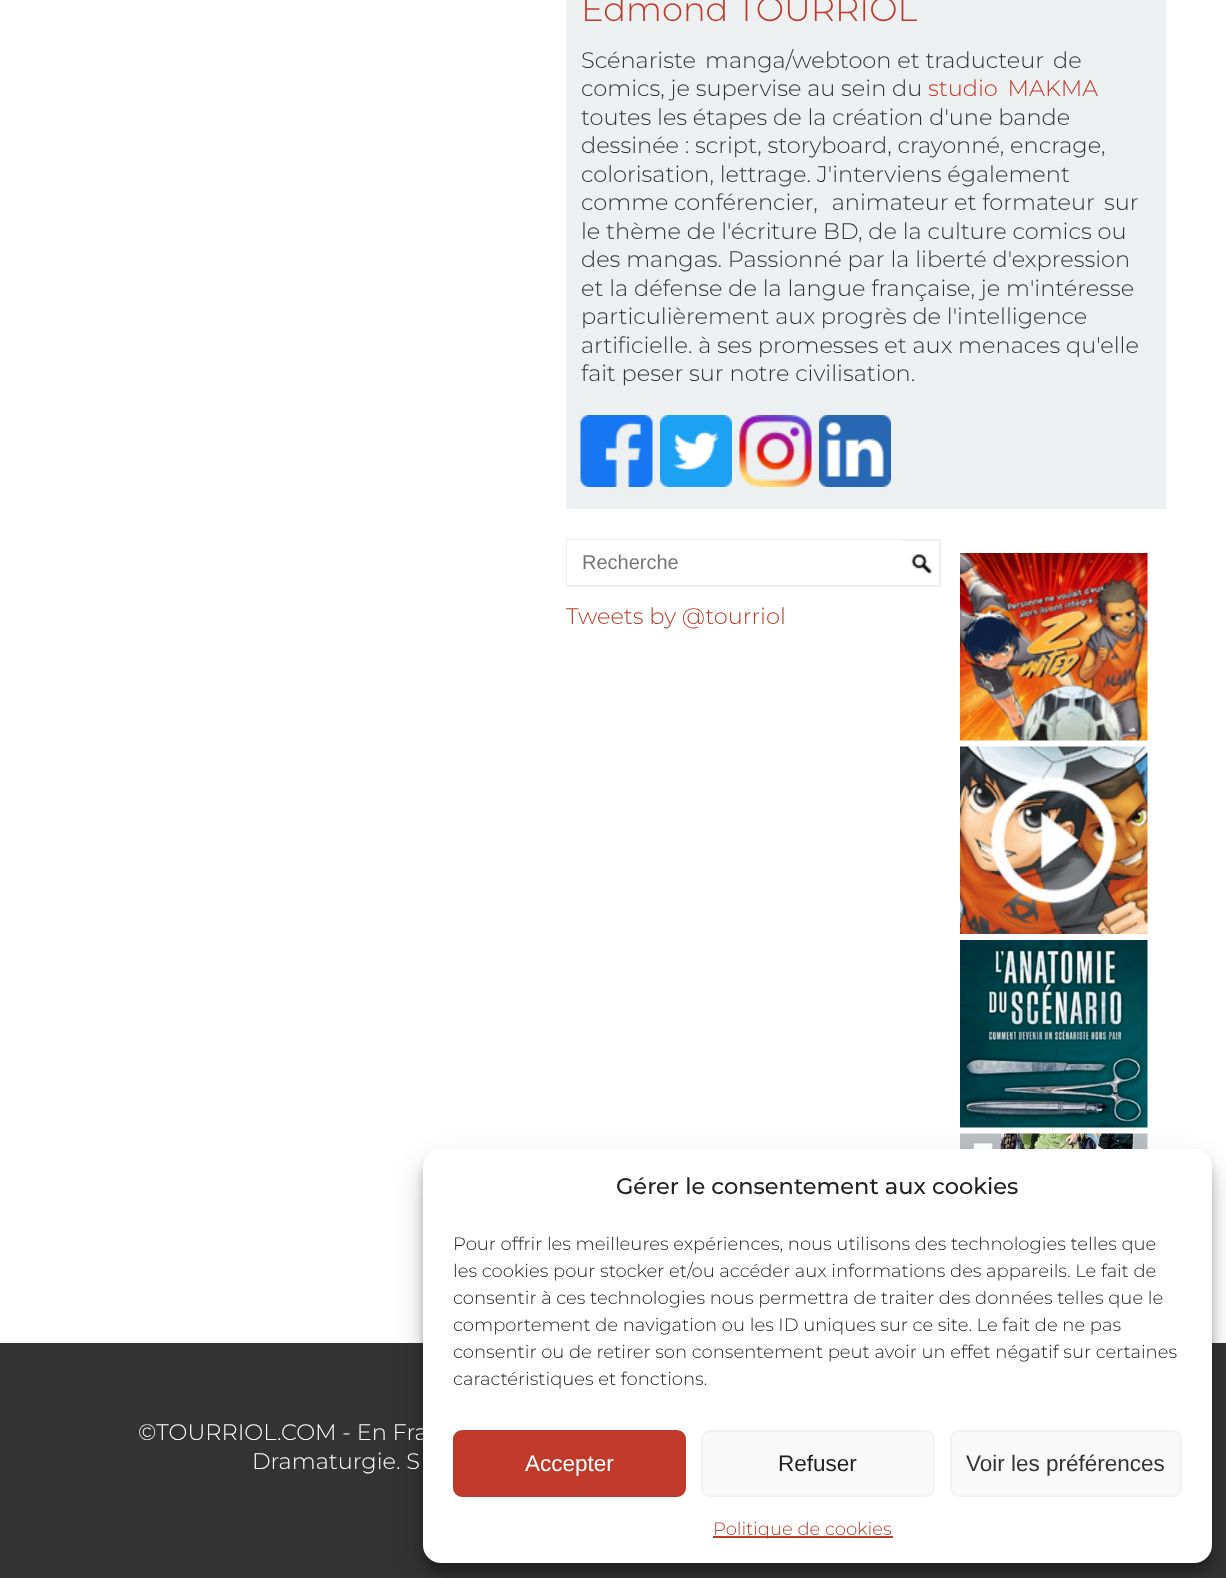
<?xml version="1.0" encoding="UTF-8"?>
<svg xmlns="http://www.w3.org/2000/svg" xmlns:xlink="http://www.w3.org/1999/xlink" width="1226" height="1578">
  <rect width="100%" height="100%" fill="#ffffff" />
  <rect x="566" width="600" height="509" fill="#ecf0f1" />
  <image x="580" y="415" width="73" height="72" xlink:href="image1.png" />
  <image x="660" y="415" width="72" height="72" xlink:href="image2.png" />
  <image x="739" y="415" width="73" height="72" xlink:href="image3.png" />
  <image x="819" y="415" width="72" height="72" xlink:href="image4.png" />
  <rect x="567" y="540" width="373" height="46" fill="none" stroke="#ecf0f1" stroke-width="2" />
  <rect x="567" y="540" width="335" height="45" fill="#ffffff" />
  <image x="911" y="554" width="21" height="21" xlink:href="image5.png" />
  <image x="960" y="553" width="188" height="188" xlink:href="image6.png" />
  <image x="960" y="746" width="188" height="188" xlink:href="image7.png" />
  <image x="960" y="940" width="188" height="188" xlink:href="image8.png" />
  <image x="960" y="1133" width="188" height="16" xlink:href="image9.png" />
  <rect y="1343" width="1226" height="235" fill="#333333" />
  <rect x="423" y="1158" width="789" height="414" rx="18" fill="#000000" fill-opacity="0.23" filter="blur(4.5px)" />
  <rect x="423" y="1164" width="789" height="414" rx="18" fill="#000000" fill-opacity="0.19" filter="blur(15px)" />
  <rect x="423" y="1149" width="789" height="414" rx="18" fill="#ffffff" />
  <rect x="454" y="1431" width="231" height="65" rx="8" fill="#c0392b" stroke="#c0392b" stroke-width="2" />
  <rect x="702" y="1431" width="232" height="65" rx="8" fill="#f9f9f9" stroke="#f2f2f2" stroke-width="2" />
  <rect x="951" y="1431" width="230" height="65" rx="8" fill="#f9f9f9" stroke="#f2f2f2" stroke-width="2" />
  <rect x="713" y="1536" width="180" height="2" fill="#c0392b" />
  <text x="581" y="21" style="font-family: Montserrat; font-size: 33.75px; font-weight: 300; fill: #c0392b">Edmond TOURRIOL</text>
  <text x="581" y="68" style="font-family: Montserrat; font-size: 22.5px; font-weight: 300; fill: #333333">Scénariste</text>
  <text x="705" y="68" style="font-family: Montserrat; font-size: 22.5px; font-weight: 300; fill: #333333">manga/webtoon et traducteur</text>
  <text x="1053" y="68" style="font-family: Montserrat; font-size: 22.5px; font-weight: 300; fill: #333333">de</text>
  <text x="581" y="96" style="font-family: Montserrat; font-size: 22.5px; font-weight: 300; fill: #333333">comics, je supervise au sein du</text>
  <text x="928" y="96" word-spacing="4" style="font-family: Montserrat; font-size: 22.5px; font-weight: 300; fill: #c0392b">studio MAKMA</text>
  <text x="581" y="125" style="font-family: Montserrat; font-size: 22.5px; font-weight: 300; fill: #333333">toutes les étapes de la création d'une bande</text>
  <text x="581" y="153" style="font-family: Montserrat; font-size: 22.5px; font-weight: 300; fill: #333333">dessinée : script, storyboard, crayonné, encrage,</text>
  <text x="581" y="182" style="font-family: Montserrat; font-size: 22.5px; font-weight: 300; fill: #333333">colorisation, lettrage. J'interviens également</text>
  <text x="581" y="210" style="font-family: Montserrat; font-size: 22.5px; font-weight: 300; fill: #333333">comme</text>
  <text x="674" y="210" word-spacing="8" style="font-family: Montserrat; font-size: 22.5px; font-weight: 300; fill: #333333">conférencier, animateur</text>
  <text x="954" y="210" style="font-family: Montserrat; font-size: 22.5px; font-weight: 300; fill: #333333">et formateur</text>
  <text x="1104" y="210" style="font-family: Montserrat; font-size: 22.5px; font-weight: 300; fill: #333333">sur</text>
  <text x="581" y="239" style="font-family: Montserrat; font-size: 22.5px; font-weight: 300; fill: #333333">le thème de l'écriture BD, de la culture comics ou</text>
  <text x="581" y="267" style="font-family: Montserrat; font-size: 22.5px; font-weight: 300; fill: #333333">des mangas. Passionné par la liberté d'expression</text>
  <text x="581" y="296" style="font-family: Montserrat; font-size: 22.5px; font-weight: 300; fill: #333333">et la défense de la langue française, je m'intéresse</text>
  <text x="581" y="324" style="font-family: Montserrat; font-size: 22.5px; font-weight: 300; fill: #333333">particulièrement aux progrès de l'intelligence</text>
  <text x="581" y="353" style="font-family: Montserrat; font-size: 22.5px; font-weight: 300; fill: #333333">artificielle. à ses promesses et aux menaces qu'elle</text>
  <text x="581" y="381" style="font-family: Montserrat; font-size: 22.5px; font-weight: 300; fill: #333333">fait peser sur notre civilisation.</text>
  <text x="582" y="569" style="font-family: Liberation Sans; font-size: 20px; fill: #757575">Recherche</text>
  <text x="566" y="624" style="font-family: Montserrat; font-size: 22.5px; font-weight: 300; fill: #c0392b">Tweets by @tourriol</text>
  <text x="138" y="1440" style="font-family: Montserrat; font-size: 22.5px; font-weight: 300; fill: #ffffff">©TOURRIOL.COM - En Fra</text>
  <text x="252" y="1469" style="font-family: Montserrat; font-size: 22.5px; font-weight: 300; fill: #ffffff">Dramaturgie. S</text>
  <text x="616" y="1194" style="font-family: Montserrat; font-size: 22.5px; font-weight: 500; fill: #222222">Gérer le consentement aux cookies</text>
  <text x="453" y="1250" style="font-family: Montserrat; font-size: 18px; font-weight: 300; fill: #222222">Pour offrir les meilleures expériences, nous utilisons des technologies telles que</text>
  <text x="453" y="1277" style="font-family: Montserrat; font-size: 18px; font-weight: 300; fill: #222222">les cookies pour stocker et/ou accéder aux informations des appareils. Le fait de</text>
  <text x="453" y="1304" style="font-family: Montserrat; font-size: 18px; font-weight: 300; fill: #222222">consentir à ces technologies nous permettra de traiter des données telles que le</text>
  <text x="453" y="1331" style="font-family: Montserrat; font-size: 18px; font-weight: 300; fill: #222222">comportement de navigation ou les ID uniques sur ce site. Le fait de ne pas</text>
  <text x="453" y="1358" style="font-family: Montserrat; font-size: 18px; font-weight: 300; fill: #222222">consentir ou de retirer son consentement peut avoir un effet négatif sur certaines</text>
  <text x="453" y="1385" style="font-family: Montserrat; font-size: 18px; font-weight: 300; fill: #222222">caractéristiques et fonctions.</text>
  <text x="525" y="1471" style="font-family: Liberation Sans; font-size: 22.5px; fill: #ffffff">Accepter</text>
  <text x="778" y="1471" style="font-family: Liberation Sans; font-size: 22.5px; fill: #222222">Refuser</text>
  <text x="966" y="1471" style="font-family: Liberation Sans; font-size: 22.5px; fill: #333333">Voir les préférences</text>
  <text x="713" y="1535" style="font-family: Montserrat; font-size: 18px; font-weight: 300; fill: #c0392b">Politique de cookies</text>
</svg>
